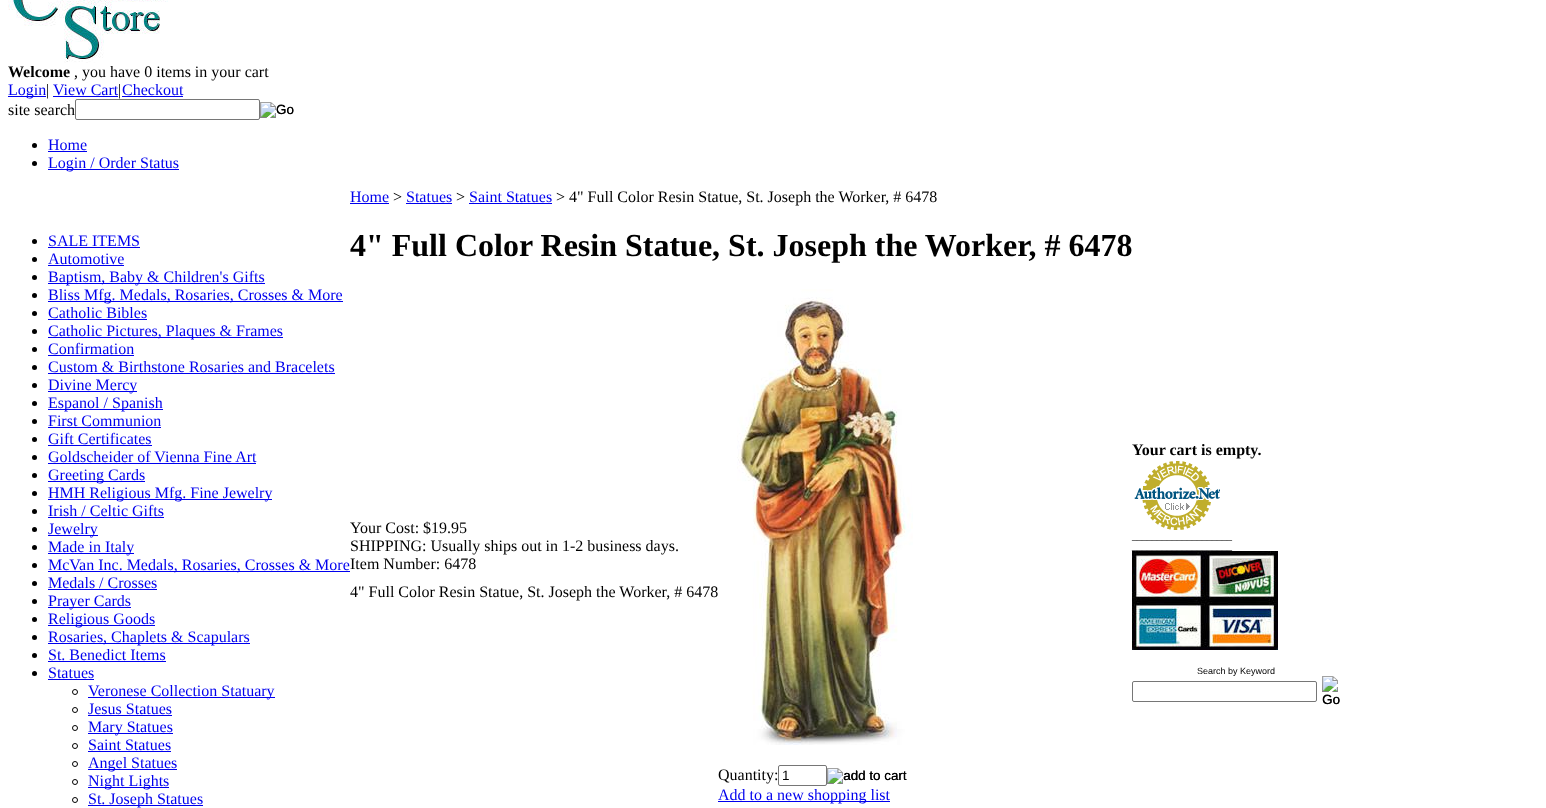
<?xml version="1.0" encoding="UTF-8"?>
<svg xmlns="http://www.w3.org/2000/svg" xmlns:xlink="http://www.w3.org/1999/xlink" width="1546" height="808">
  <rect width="100%" height="100%" fill="#ffffff" />
  <image x="8" y="0" width="160" height="63" xlink:href="image1.png" />
  <rect x="8" y="96" width="38" height="1" fill="#0000ee" />
  <rect x="53" y="96" width="65" height="1" fill="#0000ee" />
  <rect x="122" y="96" width="61" height="1" fill="#0000ee" />
  <rect x="75.5" y="99.5" width="184" height="20" rx="1.5" fill="none" stroke="#767676" />
  <image x="260" y="102" width="34" height="16" xlink:href="image2.png" />
  <circle cx="34.5" cy="145.5" r="2.5" fill="#000000" />
  <rect x="48" y="151" width="39" height="1" fill="#0000ee" />
  <circle cx="34.5" cy="163.5" r="2.5" fill="#000000" />
  <rect x="48" y="169" width="131" height="1" fill="#0000ee" />
  <circle cx="34.5" cy="241.5" r="2.5" fill="#000000" />
  <rect x="48" y="247" width="92" height="1" fill="#0000ee" />
  <circle cx="34.5" cy="259.5" r="2.5" fill="#000000" />
  <rect x="48" y="265" width="76" height="1" fill="#0000ee" />
  <circle cx="34.5" cy="277.5" r="2.5" fill="#000000" />
  <rect x="48" y="283" width="217" height="1" fill="#0000ee" />
  <circle cx="34.5" cy="295.5" r="2.5" fill="#000000" />
  <rect x="48" y="301" width="295" height="1" fill="#0000ee" />
  <circle cx="34.5" cy="313.5" r="2.5" fill="#000000" />
  <rect x="48" y="319" width="99" height="1" fill="#0000ee" />
  <circle cx="34.5" cy="331.5" r="2.5" fill="#000000" />
  <rect x="48" y="337" width="235" height="1" fill="#0000ee" />
  <circle cx="34.5" cy="349.5" r="2.5" fill="#000000" />
  <rect x="48" y="355" width="86" height="1" fill="#0000ee" />
  <circle cx="34.5" cy="367.5" r="2.5" fill="#000000" />
  <rect x="48" y="373" width="287" height="1" fill="#0000ee" />
  <circle cx="34.5" cy="385.5" r="2.5" fill="#000000" />
  <rect x="48" y="391" width="89" height="1" fill="#0000ee" />
  <circle cx="34.5" cy="403.5" r="2.5" fill="#000000" />
  <rect x="48" y="409" width="115" height="1" fill="#0000ee" />
  <circle cx="34.5" cy="421.5" r="2.5" fill="#000000" />
  <rect x="48" y="427" width="113" height="1" fill="#0000ee" />
  <circle cx="34.5" cy="439.5" r="2.5" fill="#000000" />
  <rect x="48" y="445" width="104" height="1" fill="#0000ee" />
  <circle cx="34.5" cy="457.5" r="2.5" fill="#000000" />
  <rect x="48" y="463" width="208" height="1" fill="#0000ee" />
  <circle cx="34.5" cy="475.5" r="2.5" fill="#000000" />
  <rect x="48" y="481" width="97" height="1" fill="#0000ee" />
  <circle cx="34.5" cy="493.5" r="2.5" fill="#000000" />
  <rect x="48" y="499" width="224" height="1" fill="#0000ee" />
  <circle cx="34.5" cy="511.5" r="2.5" fill="#000000" />
  <rect x="48" y="517" width="116" height="1" fill="#0000ee" />
  <circle cx="34.5" cy="529.5" r="2.5" fill="#000000" />
  <rect x="48" y="535" width="50" height="1" fill="#0000ee" />
  <circle cx="34.5" cy="547.5" r="2.5" fill="#000000" />
  <rect x="48" y="553" width="86" height="1" fill="#0000ee" />
  <circle cx="34.5" cy="565.5" r="2.5" fill="#000000" />
  <rect x="48" y="571" width="302" height="1" fill="#0000ee" />
  <circle cx="34.5" cy="583.5" r="2.5" fill="#000000" />
  <rect x="48" y="589" width="109" height="1" fill="#0000ee" />
  <circle cx="34.5" cy="601.5" r="2.5" fill="#000000" />
  <rect x="48" y="607" width="83" height="1" fill="#0000ee" />
  <circle cx="34.5" cy="619.5" r="2.5" fill="#000000" />
  <rect x="48" y="625" width="107" height="1" fill="#0000ee" />
  <circle cx="34.5" cy="637.5" r="2.5" fill="#000000" />
  <rect x="48" y="643" width="202" height="1" fill="#0000ee" />
  <circle cx="34.5" cy="655.5" r="2.5" fill="#000000" />
  <rect x="48" y="661" width="118" height="1" fill="#0000ee" />
  <circle cx="34.5" cy="673.5" r="2.5" fill="#000000" />
  <rect x="48" y="679" width="46" height="1" fill="#0000ee" />
  <circle cx="75" cy="692" r="2.5" fill="none" stroke="#000000" />
  <rect x="88" y="697" width="187" height="1" fill="#0000ee" />
  <circle cx="75" cy="710" r="2.5" fill="none" stroke="#000000" />
  <rect x="88" y="715" width="84" height="1" fill="#0000ee" />
  <circle cx="75" cy="728" r="2.5" fill="none" stroke="#000000" />
  <rect x="88" y="733" width="85" height="1" fill="#0000ee" />
  <circle cx="75" cy="746" r="2.5" fill="none" stroke="#000000" />
  <rect x="88" y="751" width="83" height="1" fill="#0000ee" />
  <circle cx="75" cy="764" r="2.5" fill="none" stroke="#000000" />
  <rect x="88" y="769" width="89" height="1" fill="#0000ee" />
  <circle cx="75" cy="782" r="2.5" fill="none" stroke="#000000" />
  <rect x="88" y="787" width="81" height="1" fill="#0000ee" />
  <circle cx="75" cy="800" r="2.5" fill="none" stroke="#000000" />
  <rect x="88" y="805" width="115" height="1" fill="#0000ee" />
  <rect x="350" y="203" width="39" height="1" fill="#0000ee" />
  <rect x="406" y="203" width="46" height="1" fill="#0000ee" />
  <rect x="469" y="203" width="83" height="1" fill="#0000ee" />
  <image x="737" y="289" width="176" height="456" xlink:href="image3.png" />
  <rect x="778.5" y="765.5" width="48" height="20" rx="1.5" fill="none" stroke="#767676" />
  <image x="827" y="768" width="79" height="16" xlink:href="image4.png" />
  <rect x="718" y="801" width="172" height="1" fill="#0000ee" />
  <image x="1134" y="461" width="86" height="69" xlink:href="image5.png" />
  <image x="1132" y="551" width="146" height="99" xlink:href="image6.png" />
  <rect x="1132.5" y="681.5" width="184" height="20" rx="1.5" fill="none" stroke="#767676" />
  <image x="1322" y="676" width="18" height="28" xlink:href="image7.png" />
  <text x="8" y="77" style="font-family: Liberation Serif; font-size: 16px; font-weight: bold; fill: #000000">Welcome</text>
  <text x="74" y="77" style="font-family: Liberation Serif; font-size: 16px; fill: #000000">, you have 0 items in your cart</text>
  <text x="8" y="95" style="font-family: Liberation Serif; font-size: 16px; fill: #0000ee">Login</text>
  <text x="46" y="95" style="font-family: Liberation Serif; font-size: 16px; fill: #000000">|</text>
  <text x="53" y="95" style="font-family: Liberation Serif; font-size: 16px; fill: #0000ee">View Cart</text>
  <text x="118" y="95" style="font-family: Liberation Serif; font-size: 16px; fill: #000000">|</text>
  <text x="122" y="95" style="font-family: Liberation Serif; font-size: 16px; fill: #0000ee">Checkout</text>
  <text x="8" y="115" style="font-family: Liberation Serif; font-size: 16px; fill: #000000">site search</text>
  <text x="276" y="114" style="font-family: Liberation Sans; font-size: 13.5px; fill: #000000">Go</text>
  <text x="48" y="150" style="font-family: Liberation Serif; font-size: 16px; fill: #0000ee">Home</text>
  <text x="48" y="168" style="font-family: Liberation Serif; font-size: 16px; fill: #0000ee">Login / Order Status</text>
  <text x="48" y="246" style="font-family: Liberation Serif; font-size: 16px; fill: #0000ee">SALE ITEMS</text>
  <text x="48" y="264" style="font-family: Liberation Serif; font-size: 16px; fill: #0000ee">Automotive</text>
  <text x="48" y="282" style="font-family: Liberation Serif; font-size: 16px; fill: #0000ee">Baptism, Baby &amp; Children's Gifts</text>
  <text x="48" y="300" style="font-family: Liberation Serif; font-size: 16px; fill: #0000ee">Bliss Mfg. Medals, Rosaries, Crosses &amp; More</text>
  <text x="48" y="318" style="font-family: Liberation Serif; font-size: 16px; fill: #0000ee">Catholic Bibles</text>
  <text x="48" y="336" style="font-family: Liberation Serif; font-size: 16px; fill: #0000ee">Catholic Pictures, Plaques &amp; Frames</text>
  <text x="48" y="354" style="font-family: Liberation Serif; font-size: 16px; fill: #0000ee">Confirmation</text>
  <text x="48" y="372" style="font-family: Liberation Serif; font-size: 16px; fill: #0000ee">Custom &amp; Birthstone Rosaries and Bracelets</text>
  <text x="48" y="390" style="font-family: Liberation Serif; font-size: 16px; fill: #0000ee">Divine Mercy</text>
  <text x="48" y="408" style="font-family: Liberation Serif; font-size: 16px; fill: #0000ee">Espanol / Spanish</text>
  <text x="48" y="426" style="font-family: Liberation Serif; font-size: 16px; fill: #0000ee">First Communion</text>
  <text x="48" y="444" style="font-family: Liberation Serif; font-size: 16px; fill: #0000ee">Gift Certificates</text>
  <text x="48" y="462" style="font-family: Liberation Serif; font-size: 16px; fill: #0000ee">Goldscheider of Vienna Fine Art</text>
  <text x="48" y="480" style="font-family: Liberation Serif; font-size: 16px; fill: #0000ee">Greeting Cards</text>
  <text x="48" y="498" style="font-family: Liberation Serif; font-size: 16px; fill: #0000ee">HMH Religious Mfg. Fine Jewelry</text>
  <text x="48" y="516" style="font-family: Liberation Serif; font-size: 16px; fill: #0000ee">Irish / Celtic Gifts</text>
  <text x="48" y="534" style="font-family: Liberation Serif; font-size: 16px; fill: #0000ee">Jewelry</text>
  <text x="48" y="552" style="font-family: Liberation Serif; font-size: 16px; fill: #0000ee">Made in Italy</text>
  <text x="48" y="570" style="font-family: Liberation Serif; font-size: 16px; fill: #0000ee">McVan Inc. Medals, Rosaries, Crosses &amp; More</text>
  <text x="48" y="588" style="font-family: Liberation Serif; font-size: 16px; fill: #0000ee">Medals / Crosses</text>
  <text x="48" y="606" style="font-family: Liberation Serif; font-size: 16px; fill: #0000ee">Prayer Cards</text>
  <text x="48" y="624" style="font-family: Liberation Serif; font-size: 16px; fill: #0000ee">Religious Goods</text>
  <text x="48" y="642" style="font-family: Liberation Serif; font-size: 16px; fill: #0000ee">Rosaries, Chaplets &amp; Scapulars</text>
  <text x="48" y="660" style="font-family: Liberation Serif; font-size: 16px; fill: #0000ee">St. Benedict Items</text>
  <text x="48" y="678" style="font-family: Liberation Serif; font-size: 16px; fill: #0000ee">Statues</text>
  <text x="88" y="696" style="font-family: Liberation Serif; font-size: 16px; fill: #0000ee">Veronese Collection Statuary</text>
  <text x="88" y="714" style="font-family: Liberation Serif; font-size: 16px; fill: #0000ee">Jesus Statues</text>
  <text x="88" y="732" style="font-family: Liberation Serif; font-size: 16px; fill: #0000ee">Mary Statues</text>
  <text x="88" y="750" style="font-family: Liberation Serif; font-size: 16px; fill: #0000ee">Saint Statues</text>
  <text x="88" y="768" style="font-family: Liberation Serif; font-size: 16px; fill: #0000ee">Angel Statues</text>
  <text x="88" y="786" style="font-family: Liberation Serif; font-size: 16px; fill: #0000ee">Night Lights</text>
  <text x="88" y="804" style="font-family: Liberation Serif; font-size: 16px; fill: #0000ee">St. Joseph Statues</text>
  <text x="350" y="202" style="font-family: Liberation Serif; font-size: 16px; fill: #0000ee">Home</text>
  <text x="393" y="202" style="font-family: Liberation Serif; font-size: 16px; fill: #000000">&gt;</text>
  <text x="406" y="202" style="font-family: Liberation Serif; font-size: 16px; fill: #0000ee">Statues</text>
  <text x="456" y="202" style="font-family: Liberation Serif; font-size: 16px; fill: #000000">&gt;</text>
  <text x="469" y="202" style="font-family: Liberation Serif; font-size: 16px; fill: #0000ee">Saint Statues</text>
  <text x="556" y="202" style="font-family: Liberation Serif; font-size: 16px; fill: #000000">&gt; 4" Full Color Resin Statue, St. Joseph the Worker, # 6478</text>
  <text x="350" y="256" style="font-family: Liberation Serif; font-size: 32px; font-weight: bold; fill: #000000">4" Full Color Resin Statue, St. Joseph the Worker, # 6478</text>
  <text x="350" y="533" style="font-family: Liberation Serif; font-size: 16px; fill: #000000">Your Cost: $19.95</text>
  <text x="350" y="551" style="font-family: Liberation Serif; font-size: 16px; fill: #000000">SHIPPING: Usually ships out in 1-2 business days.</text>
  <text x="350" y="569" style="font-family: Liberation Serif; font-size: 16px; fill: #000000">Item Number: 6478</text>
  <text x="350" y="597" style="font-family: Liberation Serif; font-size: 16px; fill: #000000">4" Full Color Resin Statue, St. Joseph the Worker, # 6478</text>
  <text x="718" y="780" style="font-family: Liberation Serif; font-size: 16px; fill: #000000">Quantity:</text>
  <text x="782" y="780" style="font-family: Liberation Sans; font-size: 13.5px; fill: #000000">1</text>
  <text x="843" y="780" style="font-family: Liberation Sans; font-size: 13.5px; fill: #000000">add to cart</text>
  <text x="718" y="800" style="font-family: Liberation Serif; font-size: 16px; fill: #0000ee">Add to a new shopping list</text>
  <text x="1132" y="455" style="font-family: Liberation Serif; font-size: 16px; font-weight: bold; fill: #000000">Your cart is empty.</text>
  <text x="1132" y="539" style="font-family: Liberation Sans; font-size: 9px; fill: #000000">____________________</text>
  <text x="1132" y="549" style="font-family: Liberation Sans; font-size: 9px; fill: #000000">____________________</text>
  <text x="1197" y="674" style="font-family: Liberation Sans; font-size: 9px; fill: #000000">Search by Keyword</text>
  <text x="1322" y="704" style="font-family: Liberation Sans; font-size: 13.5px; fill: #000000">Go</text>
</svg>
